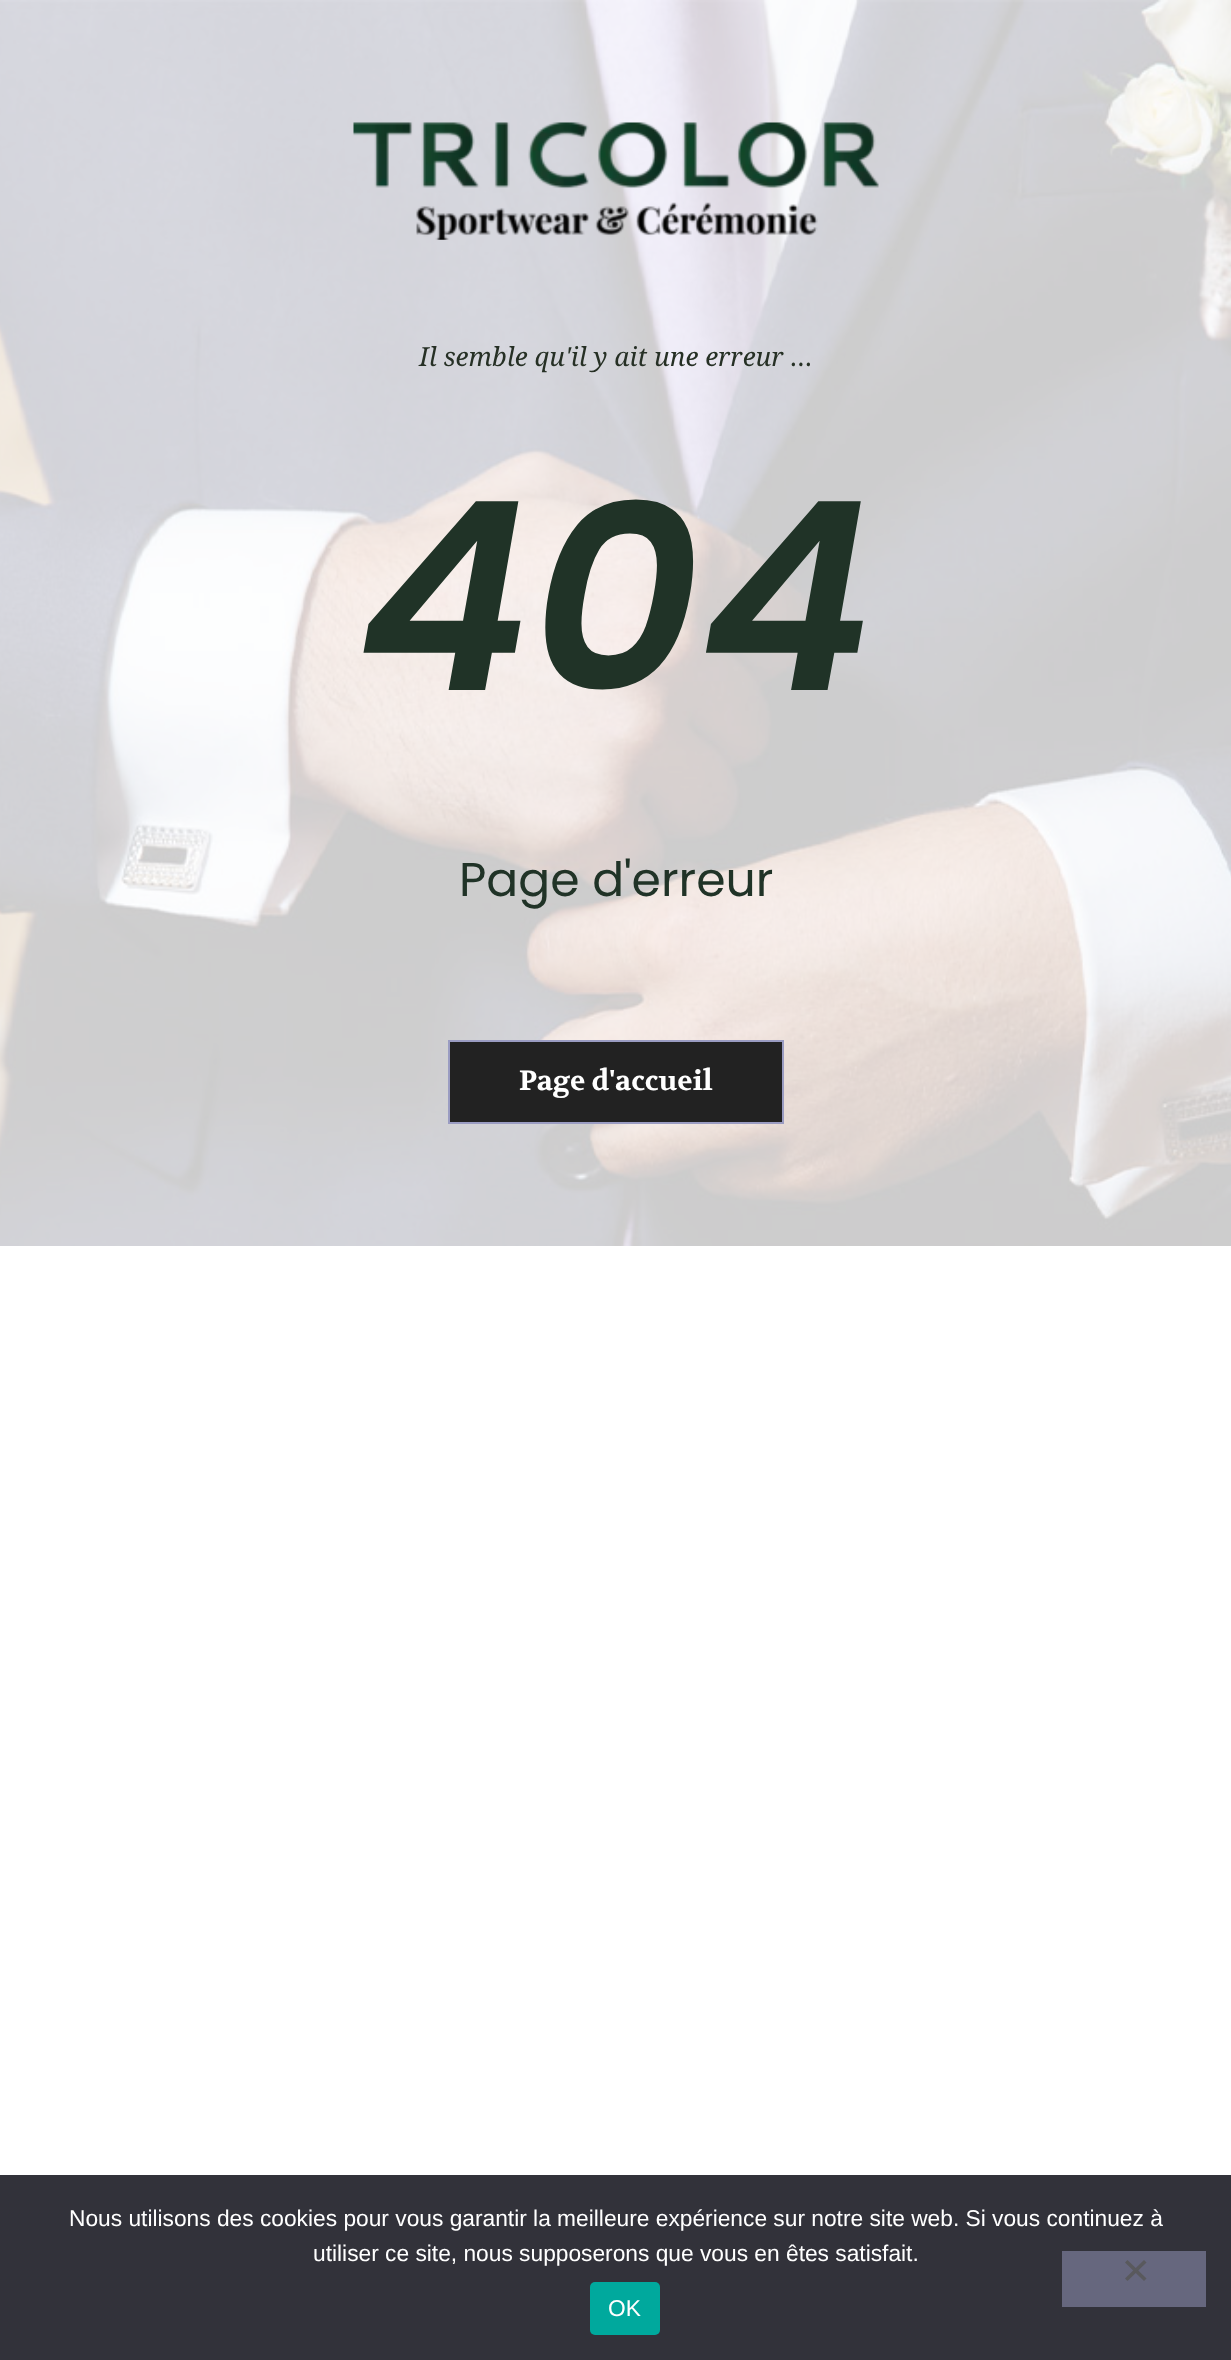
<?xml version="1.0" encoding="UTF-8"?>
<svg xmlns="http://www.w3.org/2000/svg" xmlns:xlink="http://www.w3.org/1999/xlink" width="1231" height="2360">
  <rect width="100%" height="100%" fill="#ffffff" />
  <image x="0" y="0" width="1231" height="1246" xlink:href="image1.png" />
  <image x="353" y="122" width="526" height="118" xlink:href="image2.png" />
  <rect x="449" y="1041" width="334" height="82" fill="#222222" stroke="#9a9cc2" stroke-width="2" />
  <rect y="2175" width="1231" height="185" fill="#32323a" />
  <rect x="590" y="2282" width="70" height="53" rx="5" fill="#00a99d" />
  <rect x="1062" y="2251" width="144" height="56" fill="#66677e" />
  <path d="M 1144 2260 l 2.5 2.5 l -19 18.5 l -2.5 -2.5 z" fill="#59595d" />
  <path d="M 1125 2262.5 l 2.5 -2.5 l 19 18.5 l -2.5 2.5 z" fill="#59595d" />
  <text x="419" y="366" style="font-family: Droid Serif; font-size: 26.25px; font-style: italic; fill: #263025">Il semble qu'il y ait une erreur ...</text>
  <text x="358" y="690" style="font-family: Poppins; font-size: 262px; font-weight: 600; font-style: italic; fill: #203327">404</text>
  <text x="459" y="896" style="font-family: Poppins; font-size: 47.25px; fill: #203327">Page d'erreur</text>
  <text x="519" y="1090" style="font-family: Volkhov; font-size: 28px; font-weight: bold; fill: #ffffff">Page d'accueil</text>
  <text x="69" y="2226" style="font-family: Liberation Sans; font-size: 22.75px; fill: #ffffff">Nous utilisons des cookies pour vous garantir la meilleure expérience sur notre site web. Si vous continuez à</text>
  <text x="313" y="2261" style="font-family: Liberation Sans; font-size: 22.75px; fill: #ffffff">utiliser ce site, nous supposerons que vous en êtes satisfait.</text>
  <text x="608" y="2316" style="font-family: Liberation Sans; font-size: 22.75px; fill: #ffffff">OK</text>
</svg>
